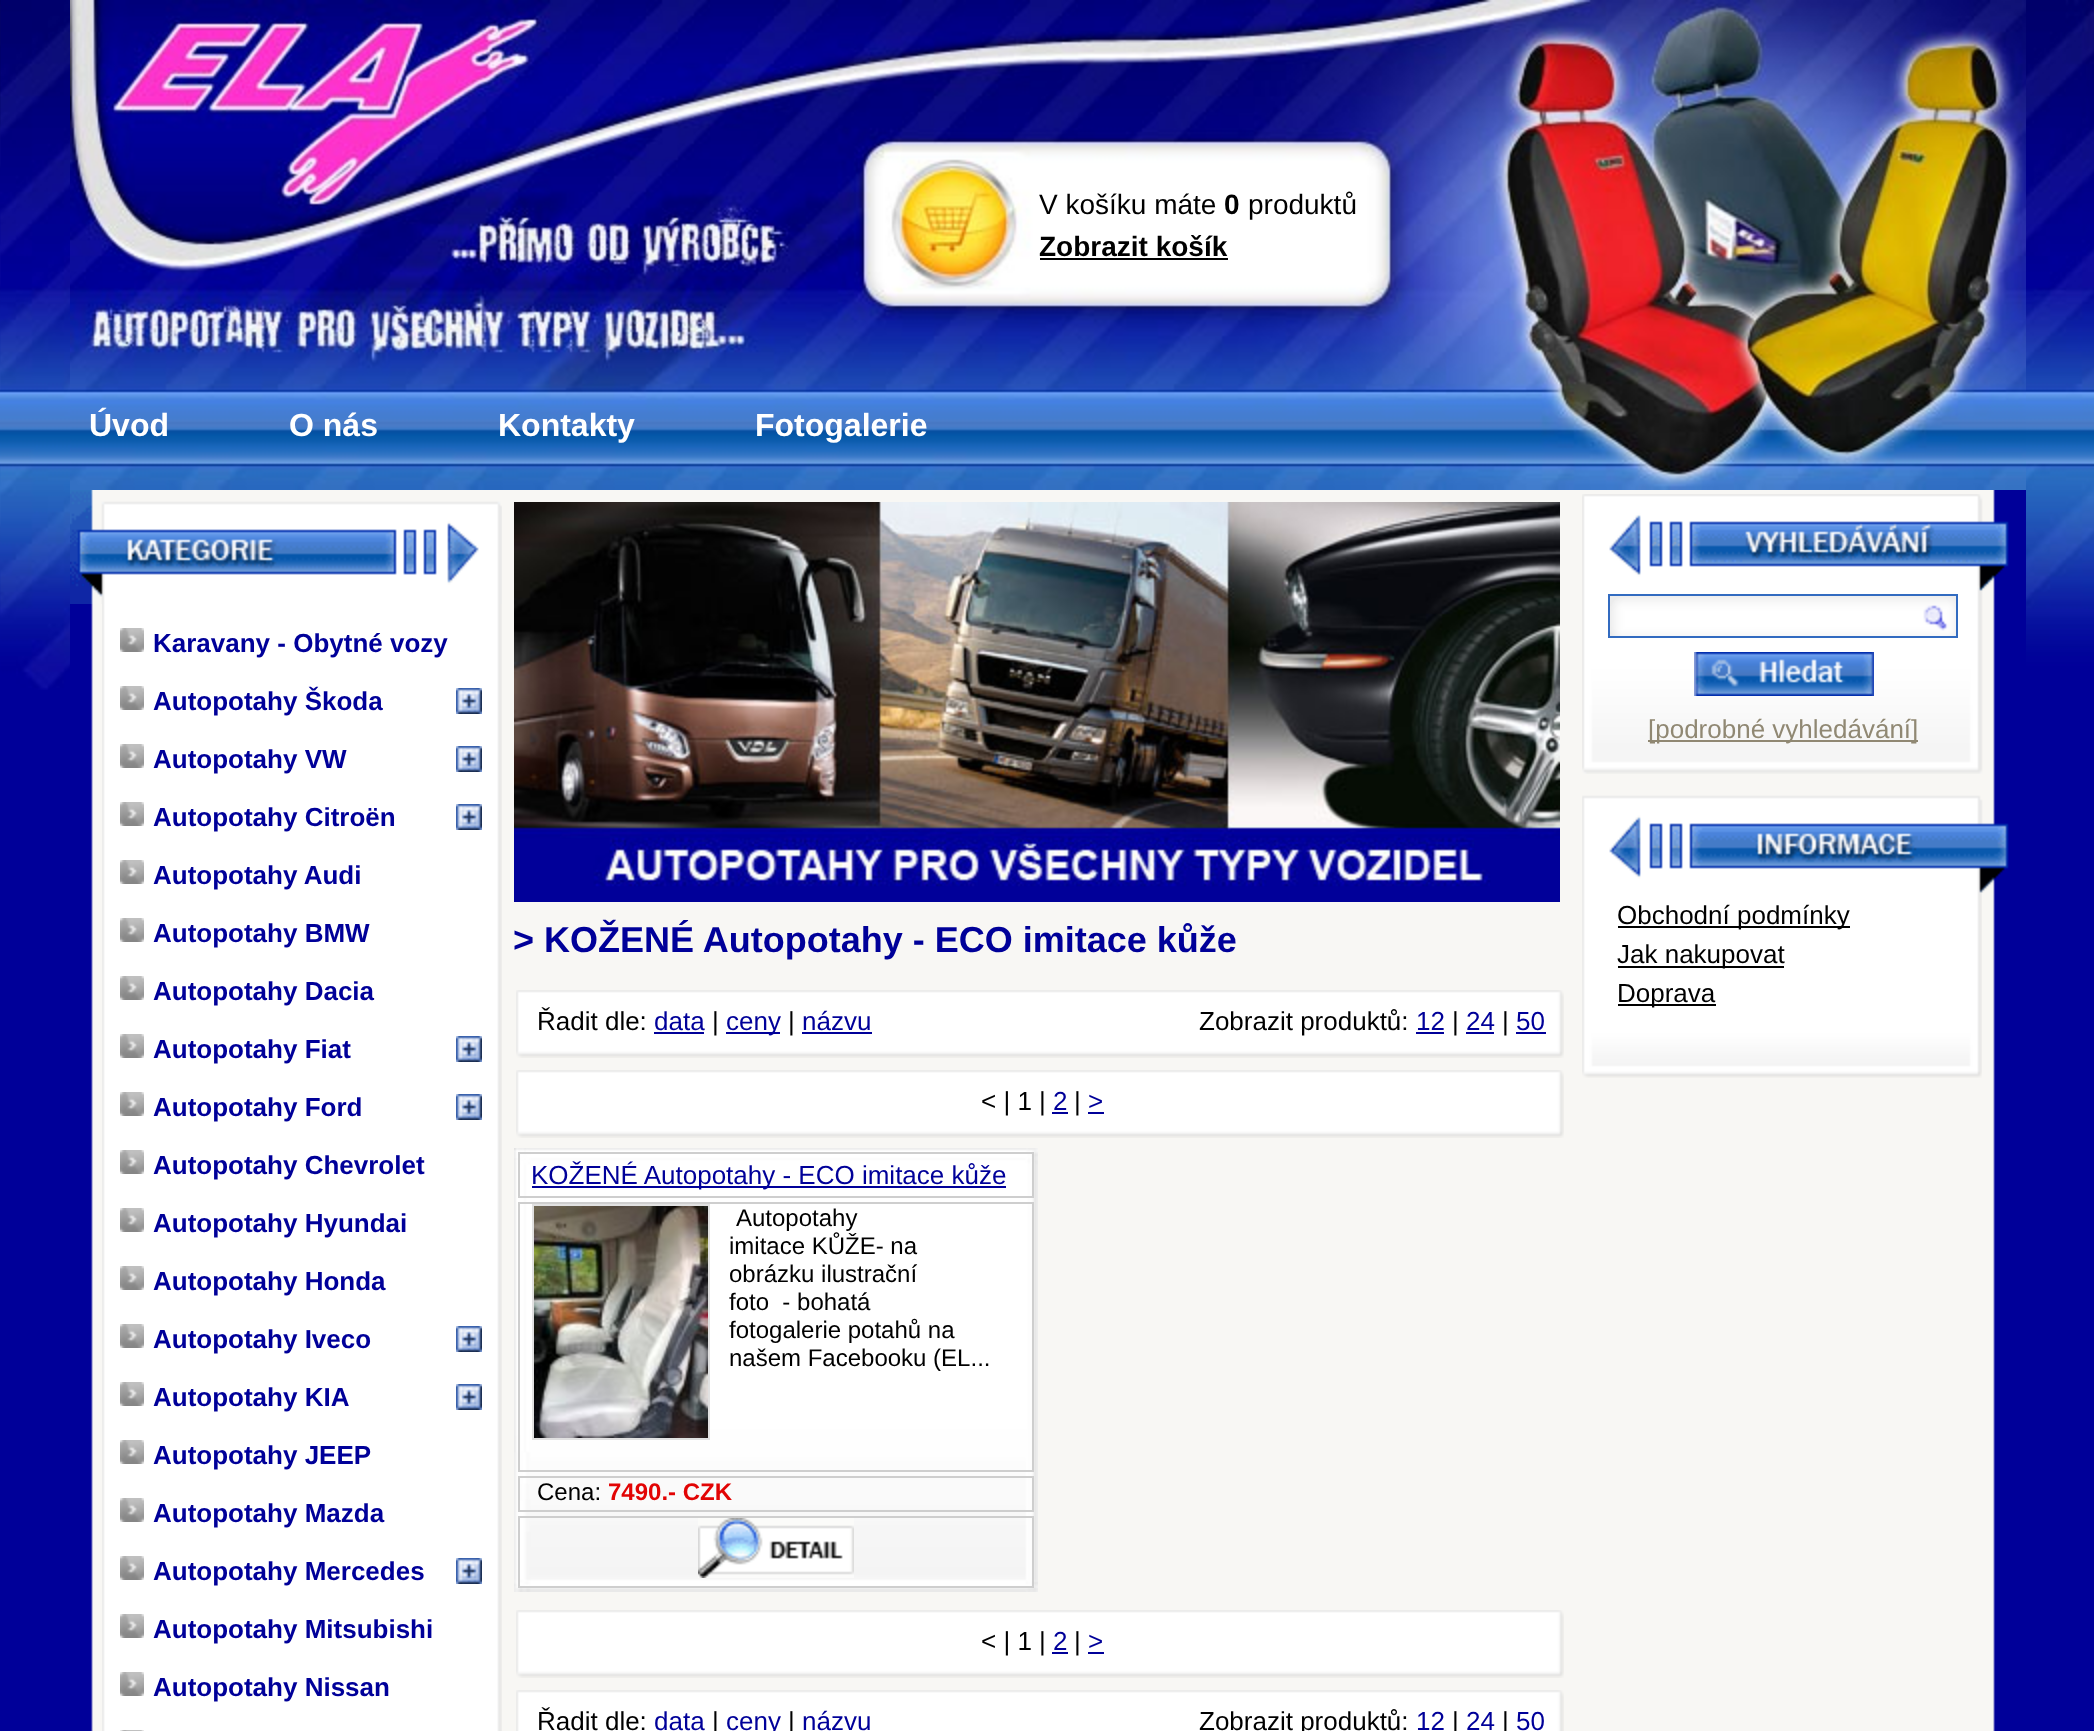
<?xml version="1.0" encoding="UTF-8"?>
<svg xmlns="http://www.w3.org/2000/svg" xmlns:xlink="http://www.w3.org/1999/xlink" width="2094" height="1731">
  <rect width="100%" height="100%" fill="#000099" />
  <image x="0" y="0" width="2094" height="690" xlink:href="image1.png" />
  <rect x="70" y="490" width="1956" height="200" fill="#000099" />
  <image x="91" y="490" width="1904" height="1241" xlink:href="image2.png" />
  <image x="70" y="0" width="1956" height="490" xlink:href="image3.png" />
  <rect x="1040" y="258" width="188" height="2" fill="#000000" />
  <image x="102" y="604" width="400" height="1127" xlink:href="image4.png" />
  <image x="70" y="490" width="432" height="114" xlink:href="image5.png" />
  <image x="120" y="628" width="24" height="24" xlink:href="image6.png" />
  <image x="120" y="686" width="24" height="24" xlink:href="image6.png" />
  <image x="456" y="688" width="26" height="26" xlink:href="image7.png" />
  <image x="120" y="744" width="24" height="24" xlink:href="image6.png" />
  <image x="456" y="746" width="26" height="26" xlink:href="image7.png" />
  <image x="120" y="802" width="24" height="24" xlink:href="image6.png" />
  <image x="456" y="804" width="26" height="26" xlink:href="image7.png" />
  <image x="120" y="860" width="24" height="24" xlink:href="image6.png" />
  <image x="120" y="918" width="24" height="24" xlink:href="image6.png" />
  <image x="120" y="976" width="24" height="24" xlink:href="image6.png" />
  <image x="120" y="1034" width="24" height="24" xlink:href="image6.png" />
  <image x="456" y="1036" width="26" height="26" xlink:href="image7.png" />
  <image x="120" y="1092" width="24" height="24" xlink:href="image6.png" />
  <image x="456" y="1094" width="26" height="26" xlink:href="image7.png" />
  <image x="120" y="1150" width="24" height="24" xlink:href="image6.png" />
  <image x="120" y="1208" width="24" height="24" xlink:href="image6.png" />
  <image x="120" y="1266" width="24" height="24" xlink:href="image6.png" />
  <image x="120" y="1324" width="24" height="24" xlink:href="image6.png" />
  <image x="456" y="1326" width="26" height="26" xlink:href="image7.png" />
  <image x="120" y="1382" width="24" height="24" xlink:href="image6.png" />
  <image x="456" y="1384" width="26" height="26" xlink:href="image7.png" />
  <image x="120" y="1440" width="24" height="24" xlink:href="image6.png" />
  <image x="120" y="1498" width="24" height="24" xlink:href="image6.png" />
  <image x="120" y="1556" width="24" height="24" xlink:href="image6.png" />
  <image x="456" y="1558" width="26" height="26" xlink:href="image7.png" />
  <image x="120" y="1614" width="24" height="24" xlink:href="image6.png" />
  <image x="120" y="1672" width="24" height="24" xlink:href="image6.png" />
  <image x="120" y="1730" width="24" height="1" xlink:href="image8.png" />
  <image x="1582" y="494" width="427" height="280" xlink:href="image9.png" />
  <image x="1610" y="596" width="346" height="40" xlink:href="image10.png" />
  <rect x="1609" y="595" width="348" height="42" fill="none" stroke="#326bc0" stroke-width="2" />
  <image x="1694" y="652" width="180" height="44" xlink:href="image11.png" />
  <rect x="1648" y="740" width="270" height="2" fill="#908873" />
  <image x="1582" y="893" width="400" height="121" xlink:href="image12.png" />
  <image x="1582" y="776" width="427" height="117" xlink:href="image13.png" />
  <rect x="1618" y="926" width="232" height="2" fill="#000000" />
  <rect x="1618" y="966" width="166" height="2" fill="#000000" />
  <rect x="1618" y="1004" width="98" height="2" fill="#000000" />
  <image x="1582" y="1014" width="400" height="64" xlink:href="image14.png" />
  <image x="514" y="502" width="1046" height="400" xlink:href="image15.png" />
  <image x="516" y="990" width="1048" height="68" xlink:href="image16.png" />
  <rect x="654" y="1032" width="50" height="2" fill="#000099" />
  <rect x="726" y="1032" width="54" height="2" fill="#000099" />
  <rect x="802" y="1032" width="70" height="2" fill="#000099" />
  <rect x="1416" y="1032" width="28" height="2" fill="#000099" />
  <rect x="1466" y="1032" width="28" height="2" fill="#000099" />
  <rect x="1516" y="1032" width="30" height="2" fill="#000099" />
  <image x="516" y="1070" width="1048" height="68" xlink:href="image16.png" />
  <rect x="1052" y="1112" width="16" height="2" fill="#000099" />
  <rect x="1088" y="1112" width="16" height="2" fill="#000099" />
  <image x="514" y="1148" width="524" height="444" xlink:href="image17.png" />
  <rect x="519" y="1153" width="514" height="44" fill="none" stroke="#cecece" stroke-width="2" />
  <rect x="532" y="1186" width="474" height="2" fill="#000099" />
  <rect x="519" y="1203" width="514" height="268" fill="none" stroke="#cecece" stroke-width="2" />
  <rect x="533" y="1205" width="176" height="234" fill="none" stroke="#e1e1e1" stroke-width="2" />
  <image x="534" y="1206" width="174" height="232" xlink:href="image18.png" />
  <rect x="519" y="1477" width="514" height="34" fill="none" stroke="#cecece" stroke-width="2" />
  <rect x="519" y="1517" width="514" height="70" fill="none" stroke="#cecece" stroke-width="2" />
  <image x="698" y="1518" width="156" height="60" xlink:href="image19.png" />
  <image x="516" y="1610" width="1048" height="68" xlink:href="image16.png" />
  <rect x="1052" y="1652" width="16" height="2" fill="#000099" />
  <rect x="1088" y="1652" width="16" height="2" fill="#000099" />
  <image x="516" y="1690" width="1048" height="41" xlink:href="image20.png" />
  <text x="1039" y="214" style="font-family: Liberation Sans; font-size: 28px; fill: #000000">V košíku máte</text>
  <text x="1224" y="214" style="font-family: Liberation Sans; font-size: 28px; font-weight: bold; fill: #000000">0</text>
  <text x="1248" y="214" style="font-family: Liberation Sans; font-size: 28px; fill: #000000">produktů</text>
  <text x="1039" y="256" style="font-family: Liberation Sans; font-size: 28px; font-weight: bold; fill: #000000">Zobrazit košík</text>
  <text x="89" y="436" style="font-family: Liberation Sans; font-size: 32px; font-weight: bold; fill: #ffffff">Úvod</text>
  <text x="289" y="436" style="font-family: Liberation Sans; font-size: 32px; font-weight: bold; fill: #ffffff">O nás</text>
  <text x="498" y="436" style="font-family: Liberation Sans; font-size: 32px; font-weight: bold; fill: #ffffff">Kontakty</text>
  <text x="755" y="436" style="font-family: Liberation Sans; font-size: 32px; font-weight: bold; fill: #ffffff">Fotogalerie</text>
  <text x="153" y="652" style="font-family: Liberation Sans; font-size: 26px; font-weight: bold; fill: #000099">Karavany - Obytné vozy</text>
  <text x="153" y="710" style="font-family: Liberation Sans; font-size: 26px; font-weight: bold; fill: #000099">Autopotahy Škoda</text>
  <text x="153" y="768" style="font-family: Liberation Sans; font-size: 26px; font-weight: bold; fill: #000099">Autopotahy VW</text>
  <text x="153" y="826" style="font-family: Liberation Sans; font-size: 26px; font-weight: bold; fill: #000099">Autopotahy Citroën</text>
  <text x="153" y="884" style="font-family: Liberation Sans; font-size: 26px; font-weight: bold; fill: #000099">Autopotahy Audi</text>
  <text x="153" y="942" style="font-family: Liberation Sans; font-size: 26px; font-weight: bold; fill: #000099">Autopotahy BMW</text>
  <text x="153" y="1000" style="font-family: Liberation Sans; font-size: 26px; font-weight: bold; fill: #000099">Autopotahy Dacia</text>
  <text x="153" y="1058" style="font-family: Liberation Sans; font-size: 26px; font-weight: bold; fill: #000099">Autopotahy Fiat</text>
  <text x="153" y="1116" style="font-family: Liberation Sans; font-size: 26px; font-weight: bold; fill: #000099">Autopotahy Ford</text>
  <text x="153" y="1174" style="font-family: Liberation Sans; font-size: 26px; font-weight: bold; fill: #000099">Autopotahy Chevrolet</text>
  <text x="153" y="1232" style="font-family: Liberation Sans; font-size: 26px; font-weight: bold; fill: #000099">Autopotahy Hyundai</text>
  <text x="153" y="1290" style="font-family: Liberation Sans; font-size: 26px; font-weight: bold; fill: #000099">Autopotahy Honda</text>
  <text x="153" y="1348" style="font-family: Liberation Sans; font-size: 26px; font-weight: bold; fill: #000099">Autopotahy Iveco</text>
  <text x="153" y="1406" style="font-family: Liberation Sans; font-size: 26px; font-weight: bold; fill: #000099">Autopotahy KIA</text>
  <text x="153" y="1464" style="font-family: Liberation Sans; font-size: 26px; font-weight: bold; fill: #000099">Autopotahy JEEP</text>
  <text x="153" y="1522" style="font-family: Liberation Sans; font-size: 26px; font-weight: bold; fill: #000099">Autopotahy Mazda</text>
  <text x="153" y="1580" style="font-family: Liberation Sans; font-size: 26px; font-weight: bold; fill: #000099">Autopotahy Mercedes</text>
  <text x="153" y="1638" style="font-family: Liberation Sans; font-size: 26px; font-weight: bold; fill: #000099">Autopotahy Mitsubishi</text>
  <text x="153" y="1696" style="font-family: Liberation Sans; font-size: 26px; font-weight: bold; fill: #000099">Autopotahy Nissan</text>
  <text x="1648" y="738" style="font-family: Liberation Sans; font-size: 26px; fill: #908873">[podrobné vyhledávání]</text>
  <text x="1617" y="924" style="font-family: Liberation Sans; font-size: 26px; fill: #000000">Obchodní podmínky</text>
  <text x="1617" y="963" style="font-family: Liberation Sans; font-size: 26px; fill: #000000">Jak nakupovat</text>
  <text x="1617" y="1002" style="font-family: Liberation Sans; font-size: 26px; fill: #000000">Doprava</text>
  <text x="513" y="952" style="font-family: Liberation Sans; font-size: 36px; font-weight: bold; fill: #000099">&gt; KOŽENÉ Autopotahy - ECO imitace kůže</text>
  <text x="537" y="1030" style="font-family: Liberation Sans; font-size: 26px; fill: #000000">Řadit dle:</text>
  <text x="654" y="1030" style="font-family: Liberation Sans; font-size: 26px; fill: #000099">data</text>
  <text x="712" y="1030" style="font-family: Liberation Sans; font-size: 26px; fill: #000000">|</text>
  <text x="726" y="1030" style="font-family: Liberation Sans; font-size: 26px; fill: #000099">ceny</text>
  <text x="788" y="1030" style="font-family: Liberation Sans; font-size: 26px; fill: #000000">|</text>
  <text x="802" y="1030" style="font-family: Liberation Sans; font-size: 26px; fill: #000099">názvu</text>
  <text x="1199" y="1030" style="font-family: Liberation Sans; font-size: 26px; fill: #000000">Zobrazit produktů:</text>
  <text x="1416" y="1030" style="font-family: Liberation Sans; font-size: 26px; fill: #000099">12</text>
  <text x="1452" y="1030" style="font-family: Liberation Sans; font-size: 26px; fill: #000000">|</text>
  <text x="1466" y="1030" style="font-family: Liberation Sans; font-size: 26px; fill: #000099">24</text>
  <text x="1502" y="1030" style="font-family: Liberation Sans; font-size: 26px; fill: #000000">|</text>
  <text x="1516" y="1030" style="font-family: Liberation Sans; font-size: 26px; fill: #000099">50</text>
  <text x="981" y="1110" style="font-family: Liberation Sans; font-size: 26px; fill: #000000">&lt; | 1 |</text>
  <text x="1053" y="1110" style="font-family: Liberation Sans; font-size: 26px; fill: #000099">2</text>
  <text x="1074" y="1110" style="font-family: Liberation Sans; font-size: 26px; fill: #000000">|</text>
  <text x="1088" y="1110" style="font-family: Liberation Sans; font-size: 26px; fill: #000099">&gt;</text>
  <text x="531" y="1184" style="font-family: Liberation Sans; font-size: 26px; fill: #000099">KOŽENÉ Autopotahy - ECO imitace kůže</text>
  <text x="736" y="1226" style="font-family: Liberation Sans; font-size: 24px; fill: #000000">Autopotahy</text>
  <text x="729" y="1254" style="font-family: Liberation Sans; font-size: 24px; fill: #000000">imitace KŮŽE- na</text>
  <text x="729" y="1282" style="font-family: Liberation Sans; font-size: 24px; fill: #000000">obrázku ilustrační</text>
  <text x="729" y="1310" style="font-family: Liberation Sans; font-size: 24px; fill: #000000" xml:space="preserve">foto  - bohatá</text>
  <text x="729" y="1338" style="font-family: Liberation Sans; font-size: 24px; fill: #000000">fotogalerie potahů na</text>
  <text x="729" y="1366" style="font-family: Liberation Sans; font-size: 24px; fill: #000000">našem Facebooku (EL...</text>
  <text x="537" y="1500" style="font-family: Liberation Sans; font-size: 24px; fill: #000000">Cena:</text>
  <text x="608" y="1500" style="font-family: Liberation Sans; font-size: 24px; font-weight: bold; fill: #e20404">7490.- CZK</text>
  <text x="981" y="1650" style="font-family: Liberation Sans; font-size: 26px; fill: #000000">&lt; | 1 |</text>
  <text x="1053" y="1650" style="font-family: Liberation Sans; font-size: 26px; fill: #000099">2</text>
  <text x="1074" y="1650" style="font-family: Liberation Sans; font-size: 26px; fill: #000000">|</text>
  <text x="1088" y="1650" style="font-family: Liberation Sans; font-size: 26px; fill: #000099">&gt;</text>
  <text x="537" y="1730" style="font-family: Liberation Sans; font-size: 26px; fill: #000000">Řadit dle:</text>
  <text x="654" y="1730" style="font-family: Liberation Sans; font-size: 26px; fill: #000099">data</text>
  <text x="712" y="1730" style="font-family: Liberation Sans; font-size: 26px; fill: #000000">|</text>
  <text x="726" y="1730" style="font-family: Liberation Sans; font-size: 26px; fill: #000099">ceny</text>
  <text x="788" y="1730" style="font-family: Liberation Sans; font-size: 26px; fill: #000000">|</text>
  <text x="802" y="1730" style="font-family: Liberation Sans; font-size: 26px; fill: #000099">názvu</text>
  <text x="1199" y="1730" style="font-family: Liberation Sans; font-size: 26px; fill: #000000">Zobrazit produktů:</text>
  <text x="1416" y="1730" style="font-family: Liberation Sans; font-size: 26px; fill: #000099">12</text>
  <text x="1452" y="1730" style="font-family: Liberation Sans; font-size: 26px; fill: #000000">|</text>
  <text x="1466" y="1730" style="font-family: Liberation Sans; font-size: 26px; fill: #000099">24</text>
  <text x="1502" y="1730" style="font-family: Liberation Sans; font-size: 26px; fill: #000000">|</text>
  <text x="1516" y="1730" style="font-family: Liberation Sans; font-size: 26px; fill: #000099">50</text>
</svg>
